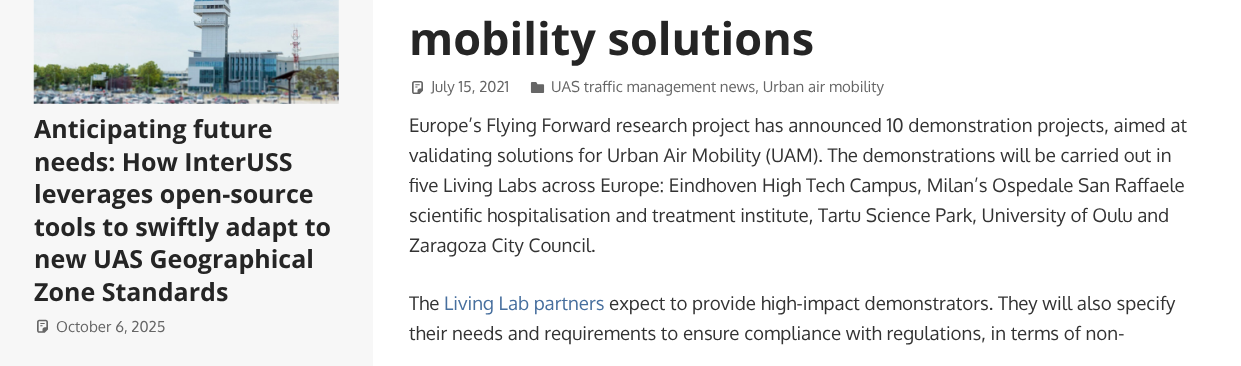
<?xml version="1.0" encoding="UTF-8"?>
<svg xmlns="http://www.w3.org/2000/svg" xmlns:xlink="http://www.w3.org/1999/xlink" width="1241" height="366">
  <rect width="100%" height="100%" fill="#ffffff" />
  <rect width="373" height="366" fill="#f7f7f7" />
  <image x="33" y="0" width="306" height="104" xlink:href="image1.png" />
  <image x="37" y="319" width="11" height="14" xlink:href="image2.png" />
  <image x="412" y="81" width="11" height="13" xlink:href="image3.png" />
  <image x="530" y="82" width="15" height="11" xlink:href="image4.png" />
  <text x="34" y="138" style="font-family: Open Sans; font-size: 25px; font-weight: bold; fill: #252525">Anticipating future</text>
  <text x="34" y="171" style="font-family: Open Sans; font-size: 25px; font-weight: bold; fill: #252525">needs: How InterUSS</text>
  <text x="34" y="203" style="font-family: Open Sans; font-size: 25px; font-weight: bold; fill: #252525">leverages open-source</text>
  <text x="34" y="236" style="font-family: Open Sans; font-size: 25px; font-weight: bold; fill: #252525">tools to swiftly adapt to</text>
  <text x="34" y="268" style="font-family: Open Sans; font-size: 25px; font-weight: bold; fill: #252525">new UAS Geographical</text>
  <text x="34" y="301" style="font-family: Open Sans; font-size: 25px; font-weight: bold; fill: #252525">Zone Standards</text>
  <text x="56" y="332" style="font-family: Oxygen; font-size: 15px; fill: #666666">October 6, 2025</text>
  <text x="409" y="55" style="font-family: Open Sans; font-size: 45px; font-weight: bold; fill: #252525">mobility solutions</text>
  <text x="431" y="92" style="font-family: Oxygen; font-size: 15px; fill: #666666">July 15, 2021</text>
  <text x="551" y="92" style="font-family: Oxygen; font-size: 15px; fill: #666666">UAS traffic management news, Urban air mobility</text>
  <text x="409" y="132" style="font-family: Oxygen; font-size: 18.75px; fill: #333333">Europe’s Flying Forward research project has announced 10 demonstration projects, aimed at</text>
  <text x="409" y="162" style="font-family: Oxygen; font-size: 18.75px; fill: #333333">validating solutions for Urban Air Mobility (UAM). The demonstrations will be carried out in</text>
  <text x="409" y="192" style="font-family: Oxygen; font-size: 18.75px; fill: #333333">five Living Labs across Europe: Eindhoven High Tech Campus, Milan’s Ospedale San Raffaele</text>
  <text x="409" y="222" style="font-family: Oxygen; font-size: 18.75px; fill: #333333">scientific hospitalisation and treatment institute, Tartu Science Park, University of Oulu and</text>
  <text x="409" y="252" style="font-family: Oxygen; font-size: 18.75px; fill: #333333">Zaragoza City Council.</text>
  <text x="409" y="310" style="font-family: Oxygen; font-size: 18.75px; fill: #333333">The</text>
  <text x="444" y="310" style="font-family: Oxygen; font-size: 18.75px; fill: #476f9e">Living Lab partners</text>
  <text x="609" y="310" style="font-family: Oxygen; font-size: 18.75px; fill: #333333">expect to provide high-impact demonstrators. They will also specify</text>
  <text x="409" y="340" style="font-family: Oxygen; font-size: 18.75px; fill: #333333">their needs and requirements to ensure compliance with regulations, in terms of non-</text>
</svg>
